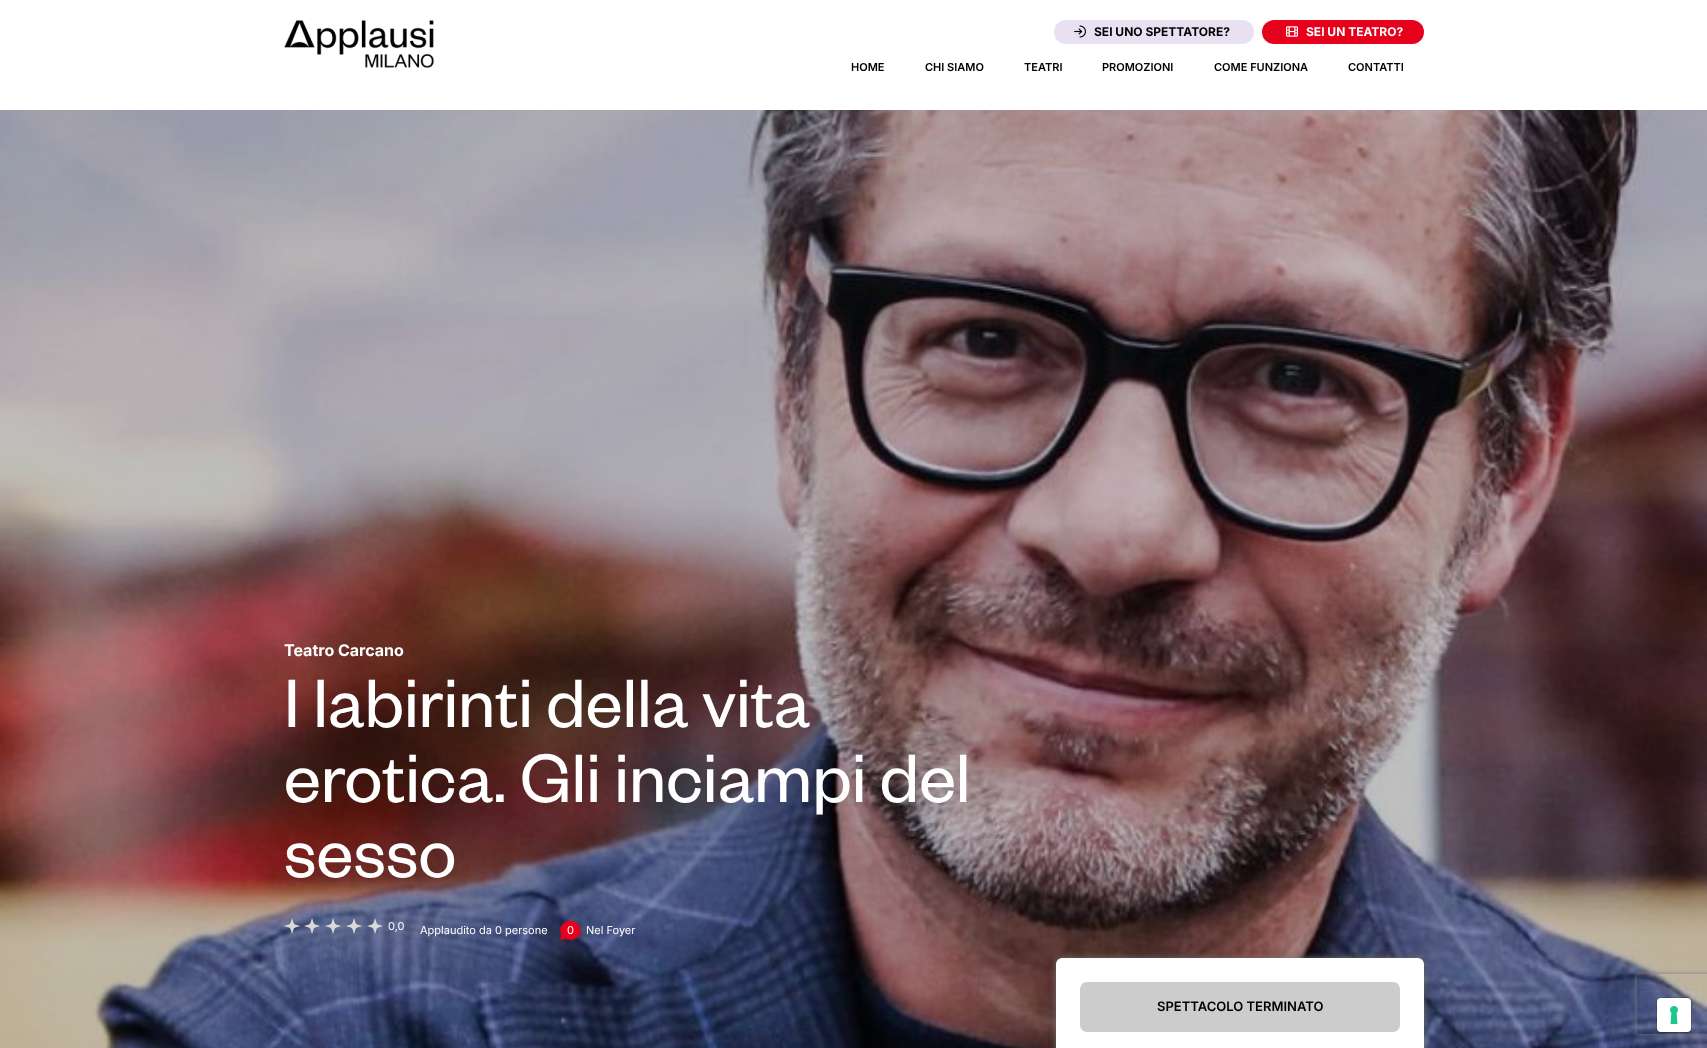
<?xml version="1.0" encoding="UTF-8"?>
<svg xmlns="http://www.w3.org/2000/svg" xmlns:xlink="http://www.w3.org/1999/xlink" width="1707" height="1048">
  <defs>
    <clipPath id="clip1"><path d="M 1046 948 h 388 v 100 h -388 z m 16 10 h 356 c 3.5 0 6 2.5 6 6 v 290 c 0 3.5 -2.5 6 -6 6 h -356 c -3.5 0 -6 -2.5 -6 -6 v -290 c 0 -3.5 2.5 -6 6 -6 z" clip-rule="evenodd" /></clipPath>
    <clipPath id="clip2"><path d="M 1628 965 h 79 v 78 h -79 z m 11 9 h 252 c 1 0 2 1 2 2 v 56 c 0 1 -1 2 -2 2 h -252 c -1 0 -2 -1 -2 -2 v -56 c 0 -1 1 -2 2 -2 z" clip-rule="evenodd" /></clipPath>
  </defs>
  <rect width="100%" height="100%" fill="#ffffff" />
  <image x="284" y="20" width="150" height="48" xlink:href="image1.png" />
  <rect x="1054" y="20" width="200" height="24" rx="12" fill="#e9e1f1" />
  <image x="1074" y="25" width="12" height="13" xlink:href="image2.png" />
  <rect x="1262" y="20" width="162" height="24" rx="12" fill="#e6001c" />
  <image x="1286" y="26" width="12" height="11" xlink:href="image3.png" />
  <image x="0" y="110" width="1707" height="938" xlink:href="image4.png" />
  <image x="284" y="918" width="16" height="16" xlink:href="image5.png" />
  <image x="304" y="918" width="16" height="16" xlink:href="image6.png" />
  <image x="325" y="918" width="16" height="16" xlink:href="image7.png" />
  <image x="346" y="918" width="16" height="16" xlink:href="image8.png" />
  <image x="367" y="918" width="16" height="16" xlink:href="image9.png" />
  <image x="559" y="920" width="23" height="21" xlink:href="image10.png" />
  <rect x="1056" y="958" width="368" height="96" rx="6" fill="#ffffff" />
  <g clip-path="url(#clip1)">
    <rect x="1056" y="958" width="368" height="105" rx="6" fill="#707070" filter="blur(3px)" />
  </g>
  <rect x="1080" y="982" width="320" height="50" rx="7" fill="#cccccc" />
  <g clip-path="url(#clip2)">
    <rect x="1637" y="974" width="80" height="60" rx="2" fill="#808080" filter="blur(2.5px)" />
  </g>
  <rect x="1656.5" y="997.5" width="35" height="35" rx="4.5" fill="none" stroke="#000000" stroke-opacity="0.15" />
  <rect x="1657" y="998" width="34" height="34" rx="4" fill="#ffffff" />
  <image x="1670" y="1006" width="8" height="18" xlink:href="image11.png" />
  <text x="1094" y="36" style="font-family: Inter; font-size: 12px; font-weight: bold; fill: #000000">SEI UNO SPETTATORE?</text>
  <text x="1306" y="36" style="font-family: Inter; font-size: 12px; font-weight: bold; fill: #ffffff">SEI UN TEATRO?</text>
  <text x="851" y="71" style="font-family: Inter; font-size: 11px; font-weight: 600; fill: #000000">HOME</text>
  <text x="925" y="71" style="font-family: Inter; font-size: 11px; font-weight: 600; fill: #000000">CHI SIAMO</text>
  <text x="1024" y="71" style="font-family: Inter; font-size: 11px; font-weight: 600; fill: #000000">TEATRI</text>
  <text x="1102" y="71" style="font-family: Inter; font-size: 11px; font-weight: 600; fill: #000000">PROMOZIONI</text>
  <text x="1214" y="71" style="font-family: Inter; font-size: 11px; font-weight: 600; fill: #000000">COME FUNZIONA</text>
  <text x="1348" y="71" style="font-family: Inter; font-size: 11px; font-weight: 600; fill: #000000">CONTATTI</text>
  <text x="284" y="656" style="font-family: Inter; font-size: 16px; font-weight: bold; fill: #ffffff">Teatro Carcano</text>
  <text x="284" y="727" style="font-family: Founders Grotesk; font-size: 75px; fill: #ffffff">I labirinti della vita</text>
  <text x="284" y="802" style="font-family: Founders Grotesk; font-size: 75px; fill: #ffffff">erotica. Gli inciampi del</text>
  <text x="284" y="877" style="font-family: Founders Grotesk; font-size: 75px; fill: #ffffff">sesso</text>
  <text x="388" y="930" style="font-family: Inter; font-size: 11px; fill: #ffffff">0,0</text>
  <text x="420" y="934" style="font-family: Inter; font-size: 11px; fill: #ffffff">Applaudito da 0 persone</text>
  <text x="567" y="934" style="font-family: Inter; font-size: 11px; fill: #ffffff">0</text>
  <text x="586" y="934" style="font-family: Inter; font-size: 11px; fill: #ffffff">Nel Foyer</text>
  <text x="1157" y="1011" style="font-family: Inter; font-size: 13px; font-weight: 600; fill: #000000">SPETTACOLO TERMINATO</text>
</svg>
